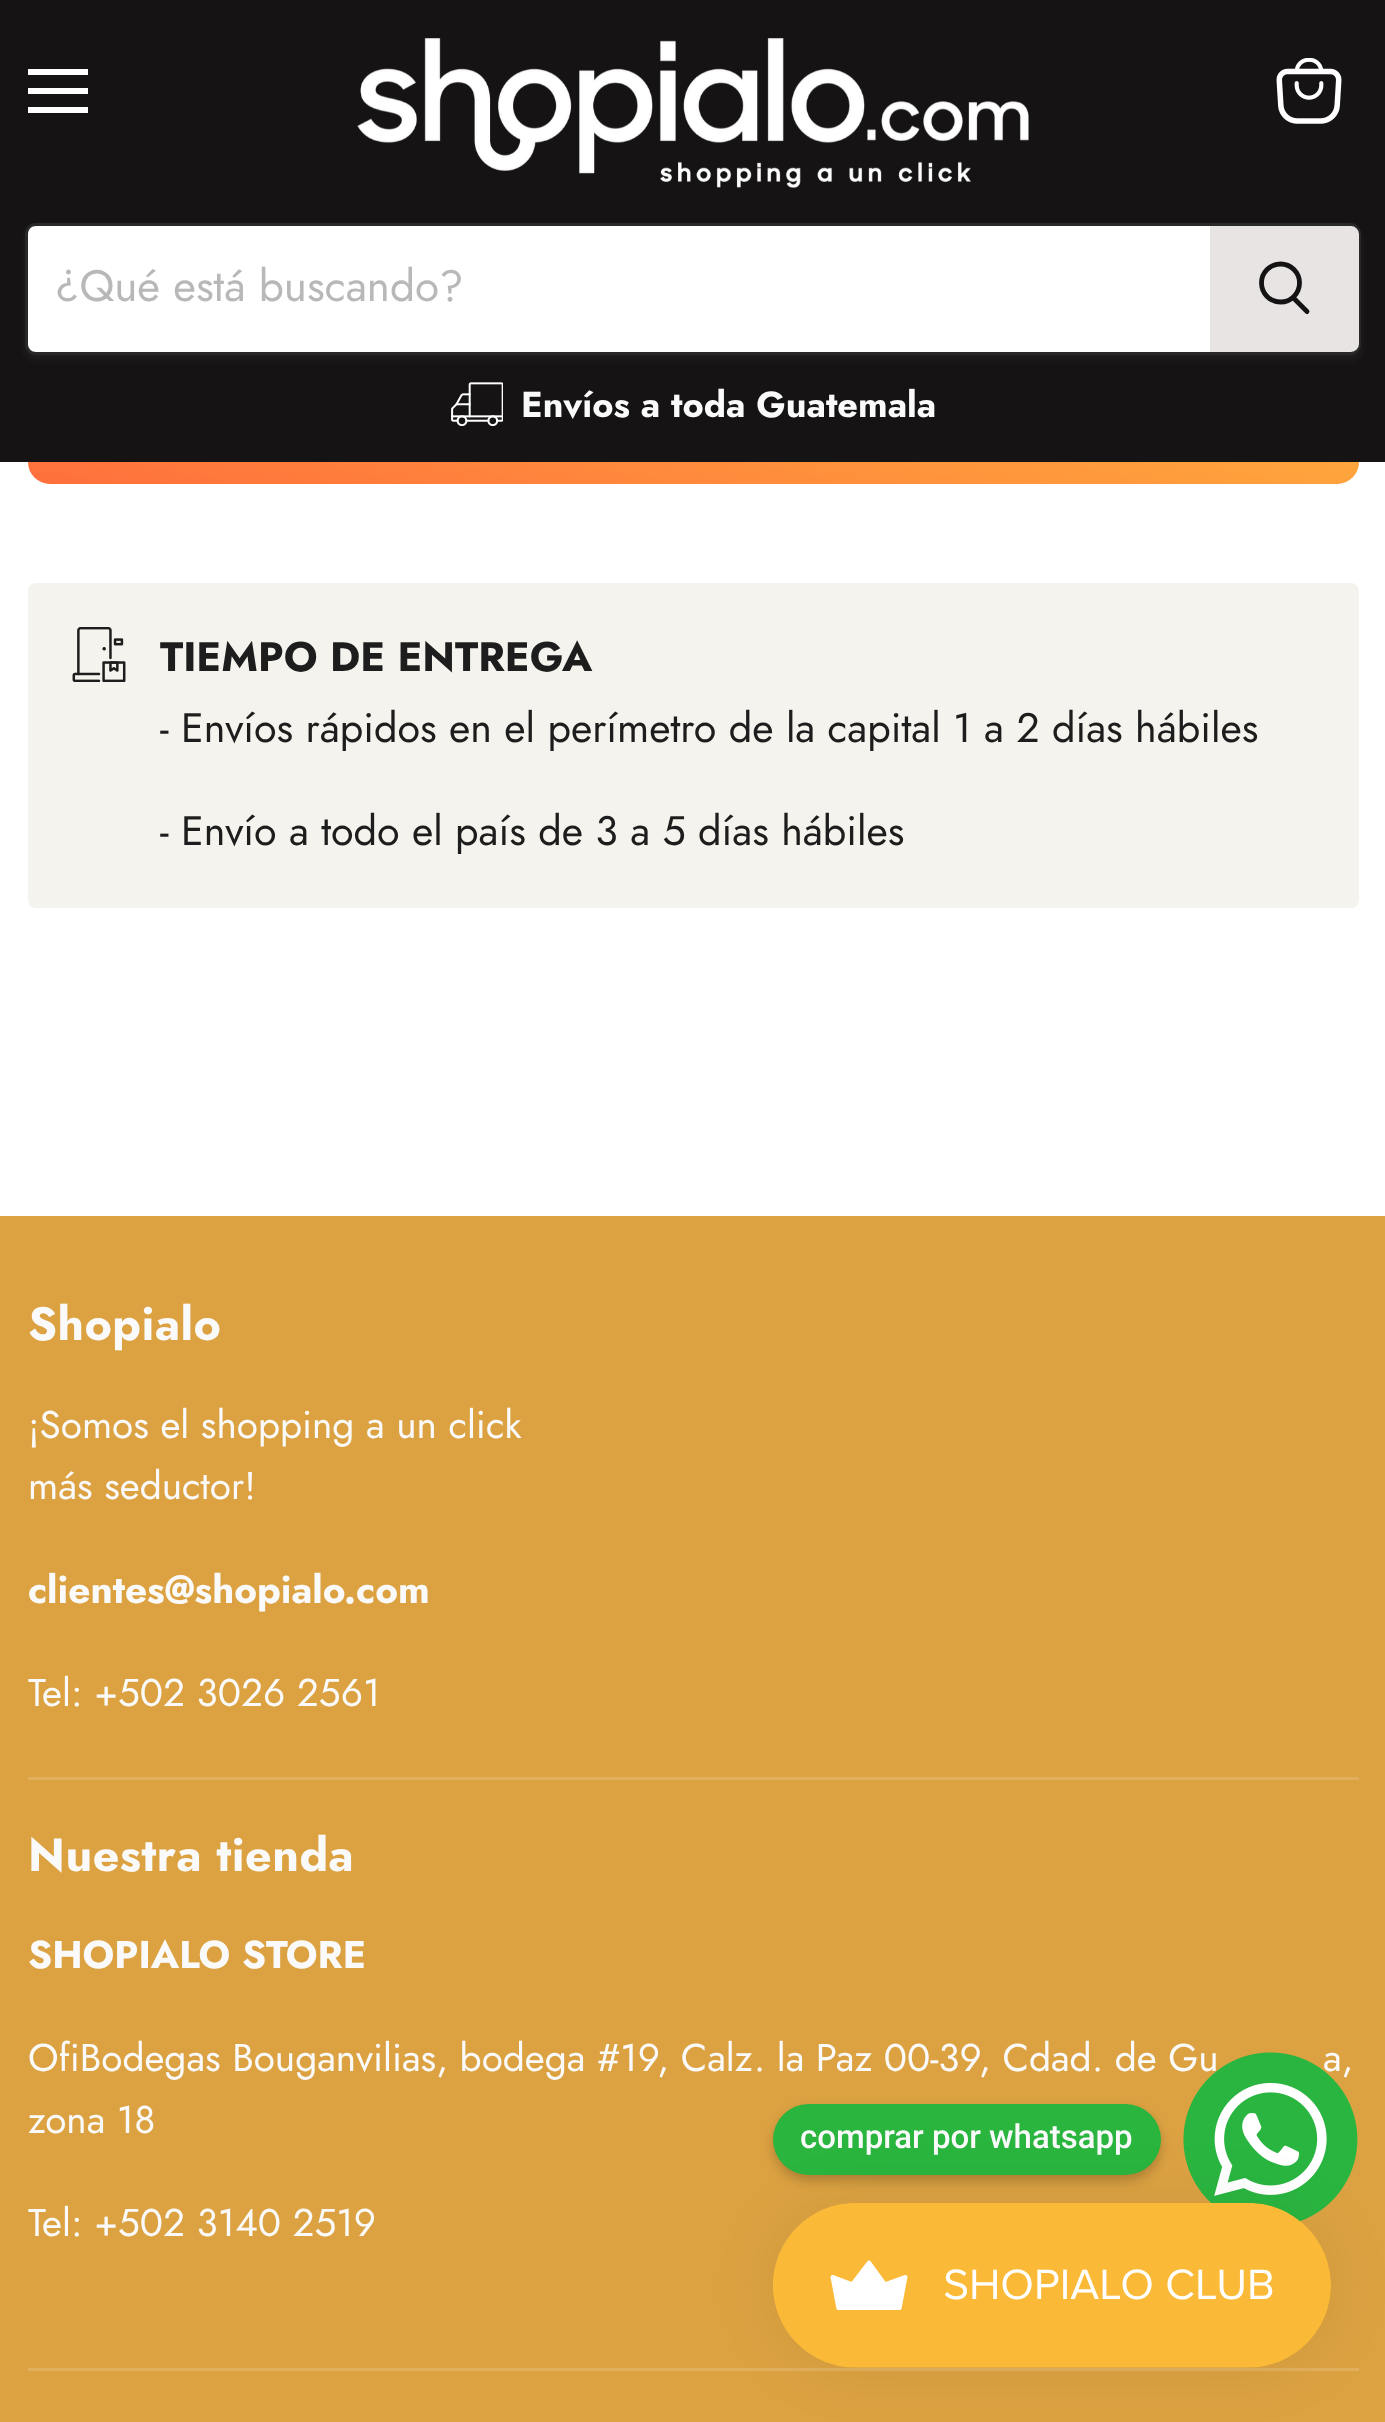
<?xml version="1.0" encoding="UTF-8"?>
<svg xmlns="http://www.w3.org/2000/svg" xmlns:xlink="http://www.w3.org/1999/xlink" width="1385" height="2422">
  <defs>
    <linearGradient id="g1" gradientUnits="userSpaceOnUse" x1="634" y1="624" x2="752" y2="113"><stop offset="0" stop-color="#ff6f3c" /><stop offset="1" stop-color="#ffc93c" /></linearGradient>
    <clipPath id="clip1"><path d="M 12 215 h 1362 v 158 h -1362 z m 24 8 h 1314 c 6 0 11 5 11 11 v 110 c 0 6 -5 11 -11 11 h -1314 c -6 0 -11 -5 -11 -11 v -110 c 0 -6 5 -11 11 -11 z" clip-rule="evenodd" /></clipPath>
  </defs>
  <rect width="100%" height="100%" fill="#ffffff" />
  <rect x="28" y="253" width="1331" height="231" rx="22" fill="url(#g1)" />
  <rect width="1385" height="462" fill="#151313" />
  <rect x="28" y="69" width="60" height="6" fill="#ffffff" />
  <rect x="28" y="88" width="60" height="6" fill="#ffffff" />
  <rect x="28" y="107" width="60" height="6" fill="#ffffff" />
  <image x="1276" y="58" width="66" height="66" xlink:href="image1.png" />
  <image x="357" y="38" width="672" height="150" xlink:href="image2.png" />
  <g clip-path="url(#clip1)">
    <rect x="25" y="228" width="1336" height="132" rx="11" fill="#808080" fill-opacity="0.11" filter="blur(4px)" />
  </g>
  <rect x="26.5" y="224.5" width="1333" height="129" rx="9.5" fill="none" stroke="#808080" stroke-opacity="0.2" stroke-width="3" />
  <path d="M 36 226 h 1174 v 126 h -1174 c -4.5 0 -8 -3.5 -8 -8 v -110 c 0 -4.5 3.5 -8 8 -8 z" fill="#ffffff" />
  <path d="M 1211.5 227.5 h 139.5 c 3.5 0 6.5 3 6.5 6.5 v 110 c 0 3.5 -3 6.5 -6.5 6.5 h -139.5 z" fill="#e7e4e3" stroke="#e7e4e3" stroke-width="3" />
  <path d="M 1307 311.5 l -13 -13" fill="none" stroke="#151313" stroke-width="4.8" stroke-linecap="round" />
  <circle cx="1280.5" cy="283" r="19" fill="none" stroke="#151313" stroke-width="4.8" />
  <image x="451" y="382" width="52" height="44" xlink:href="image3.png" />
  <rect x="28" y="583" width="1331" height="325" rx="8" fill="#f5f3ed" />
  <image x="72" y="627" width="54" height="55" xlink:href="image4.png" />
  <rect y="1216" width="1385" height="1206" fill="#dca242" />
  <rect x="28" y="1777" width="1331" height="3" fill="#e1af5e" />
  <rect x="28" y="2368" width="1331" height="3" fill="#e1af5e" />
  <rect x="773" y="2109" width="388" height="72" rx="36" fill="#000000" fill-opacity="0.2" filter="blur(5.5px)" />
  <rect x="773" y="2104" width="388" height="71" rx="35.5" fill="#2ab53f" />
  <text x="55" y="301" style="font-family: Jost; font-size: 44px; fill: #b8b8b8">¿Qué está buscando?</text>
  <text x="521" y="417" style="font-family: Jost; font-size: 36.1px; font-weight: bold; fill: #fafafa">Envíos a toda Guatemala</text>
  <text x="160" y="671" style="font-family: Jost; font-size: 41.25px; font-weight: bold; fill: #1d1d1d">TIEMPO DE ENTREGA</text>
  <text x="160" y="742" style="font-family: Jost; font-size: 41.25px; fill: #1d1d1d">- Envíos rápidos en el perímetro de la capital 1 a 2 días hábiles</text>
  <text x="160" y="845" style="font-family: Jost; font-size: 41.25px; fill: #1d1d1d">- Envío a todo el país de 3 a 5 días hábiles</text>
  <text x="28" y="1340" style="font-family: Jost; font-size: 46.5px; font-weight: bold; letter-spacing: 0.5px; fill: #fafafa">Shopialo</text>
  <text x="28" y="1438" style="font-family: Jost; font-size: 38.7px; fill: #fafafa">¡Somos el shopping a un click</text>
  <text x="28" y="1499" style="font-family: Jost; font-size: 38.7px; fill: #fafafa">más seductor!</text>
  <text x="28" y="1603" style="font-family: Jost; font-size: 38.7px; font-weight: bold; fill: #fafafa">clientes@shopialo.com</text>
  <text x="28" y="1706" style="font-family: Jost; font-size: 38.7px; fill: #fafafa">Tel: +502 3026 2561</text>
  <text x="28" y="1871" style="font-family: Jost; font-size: 46.5px; font-weight: bold; letter-spacing: 0.5px; fill: #fafafa">Nuestra tienda</text>
  <text x="28" y="1968" style="font-family: Jost; font-size: 38.7px; font-weight: bold; fill: #fafafa">SHOPIALO STORE</text>
  <text x="28" y="2071" word-spacing="-0.1" style="font-family: Jost; font-size: 38.7px; fill: #fafafa">OfiBodegas Bouganvilias, bodega #19, Calz. la Paz 00-39, Cdad. de Gu</text>
  <text x="1323" y="2071" word-spacing="-0.1" style="font-family: Jost; font-size: 38.7px; fill: #fafafa">a,</text>
  <text x="28" y="2133" style="font-family: Jost; font-size: 38.7px; fill: #fafafa">zona 18</text>
  <text x="28" y="2236" style="font-family: Jost; font-size: 38.7px; fill: #fafafa">Tel: +502 3140 2519</text>
  <text x="800" y="2148" style="font-family: Roboto; font-size: 33px; font-weight: 500; fill: #fafafa">comprar por whatsapp</text>
  <image x="1183" y="2052" width="175" height="170" xlink:href="image6.png" />
  <rect x="773" y="2203" width="558" height="165" rx="82.5" fill="#000000" fill-opacity="0.05" filter="blur(34.5px)" />
  <image x="773" y="2203" width="558" height="165" xlink:href="image5.png" />
</svg>
